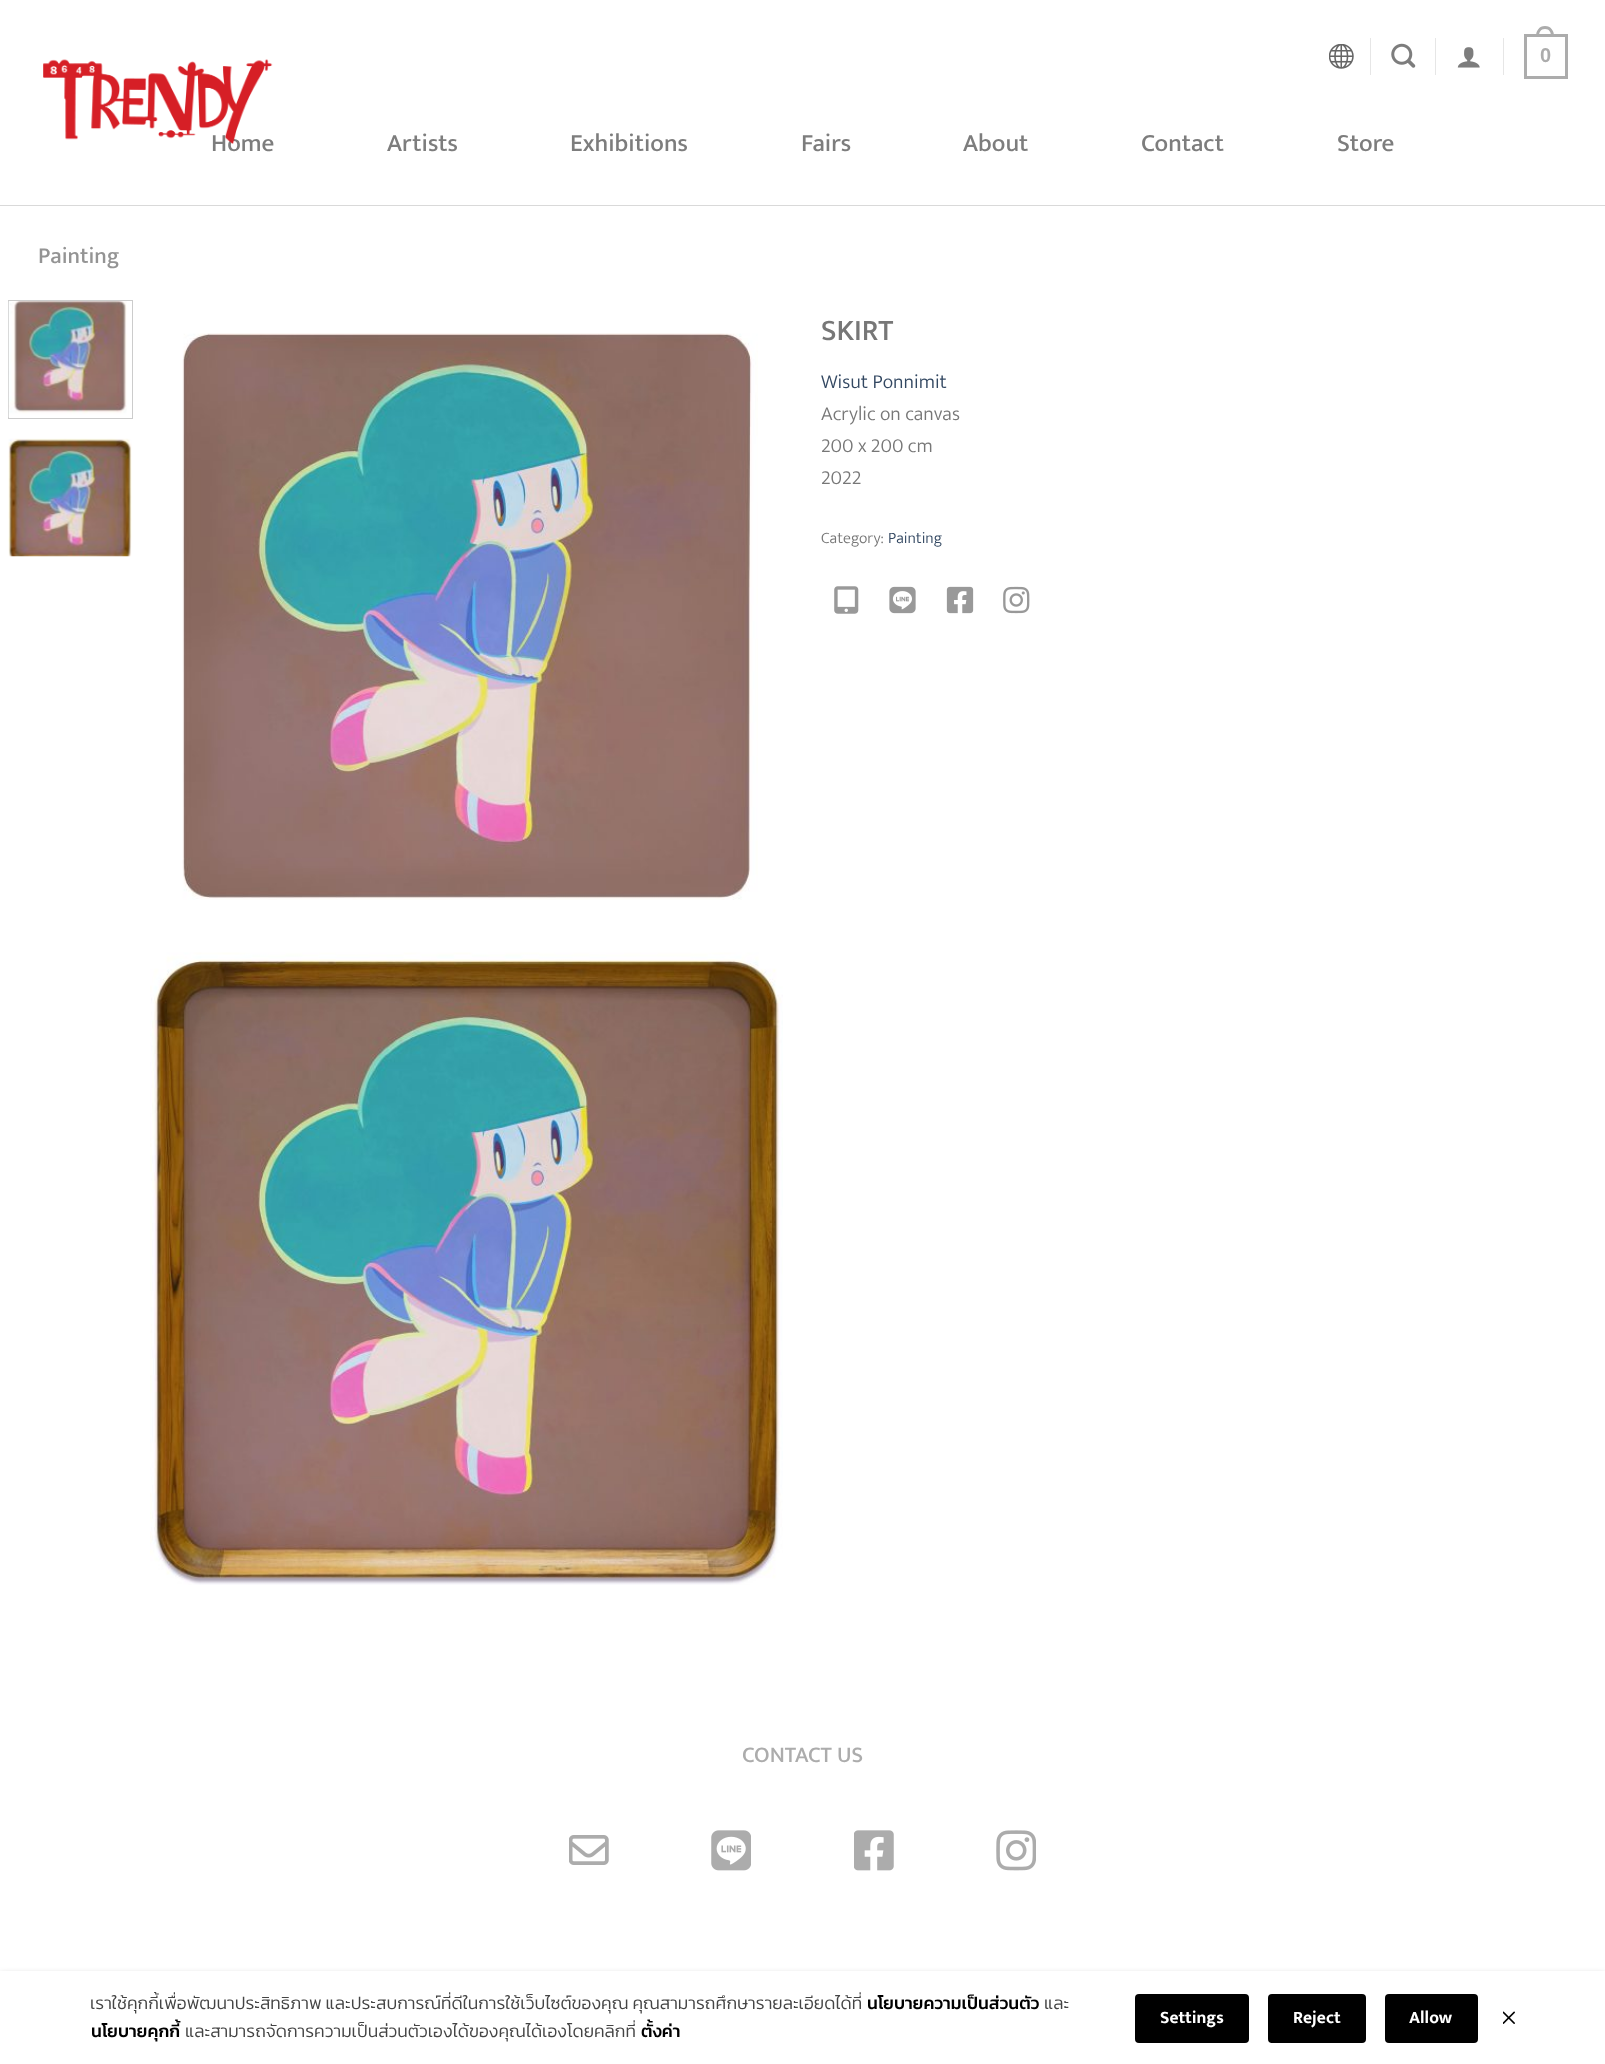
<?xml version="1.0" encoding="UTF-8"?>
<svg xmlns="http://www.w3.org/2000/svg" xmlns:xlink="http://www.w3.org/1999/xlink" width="1605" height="2064">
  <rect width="100%" height="100%" fill="#ffffff" />
  <rect y="205" width="1605" height="1" fill="#d9d9d9" />
  <image x="1329" y="44" width="25" height="25" xlink:href="image1.png" />
  <rect x="1370" y="38" width="1" height="37" fill="#e6e6e6" />
  <image x="1391" y="43" width="25" height="25" xlink:href="image2.png" />
  <rect x="1435" y="38" width="1" height="37" fill="#e6e6e6" />
  <image x="1457" y="47" width="23" height="21" xlink:href="image3.png" />
  <rect x="1503" y="38" width="1" height="37" fill="#e6e6e6" />
  <rect x="1525.5" y="35.5" width="41" height="42" fill="none" stroke="#acacac" stroke-width="3" />
  <path d="M 1545 26 c 6 0 9 5 9 10 h -18 c 0 -5 3 -10 9 -10 z m 0 3 c 4.5 0 6 3.5 6 7 h -12 c 0 -3.5 1.5 -7 6 -7 z" fill="#acacac" fill-rule="evenodd" />
  <rect x="8.5" y="300.5" width="124" height="118" fill="none" stroke="#cccccc" />
  <image x="8" y="301" width="119" height="117" xlink:href="image5.png" />
  <image x="8" y="438" width="124" height="119" xlink:href="image6.png" />
  <image x="182" y="333" width="576" height="567" xlink:href="image7.png" />
  <image x="150" y="952" width="633" height="633" xlink:href="image8.png" />
  <image x="834" y="586" width="25" height="28" xlink:href="image9.png" />
  <image x="889" y="586" width="27" height="28" xlink:href="image10.png" />
  <image x="946" y="586" width="28" height="28" xlink:href="image11.png" />
  <image x="1003" y="586" width="27" height="28" xlink:href="image12.png" />
  <image x="569" y="1835" width="40" height="30" xlink:href="image13.png" />
  <image x="711" y="1830" width="40" height="41" xlink:href="image14.png" />
  <image x="854" y="1830" width="40" height="41" xlink:href="image15.png" />
  <image x="996" y="1830" width="40" height="41" xlink:href="image16.png" />
  <rect y="1974" width="1605" height="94" fill="#000000" fill-opacity="0.25" filter="blur(3px)" />
  <rect y="1971" width="1605" height="93" fill="#ffffff" />
  <rect x="1135" y="1994" width="114" height="49" rx="4" fill="#000000" />
  <rect x="1268" y="1994" width="98" height="49" rx="4" fill="#000000" />
  <rect x="1385" y="1994" width="93" height="49" rx="4" fill="#000000" />
  <image x="1503" y="2011" width="12" height="13" xlink:href="image17.png" />
  <text x="1540" y="62" style="font-family: Liberation Sans; font-size: 20px; font-weight: bold; fill: #acacac">0</text>
  <text x="211" y="151" style="font-family: Mukta; font-size: 25px; font-weight: 500; fill: #7d7d7d">Home</text>
  <image x="43" y="59" width="230" height="85" xlink:href="image4.png" />
  <text x="387" y="151" style="font-family: Mukta; font-size: 25px; font-weight: 500; fill: #7d7d7d">Artists</text>
  <text x="570" y="151" style="font-family: Mukta; font-size: 25px; font-weight: 500; fill: #7d7d7d">Exhibitions</text>
  <text x="801" y="151" style="font-family: Mukta; font-size: 25px; font-weight: 500; fill: #7d7d7d">Fairs</text>
  <text x="963" y="151" style="font-family: Mukta; font-size: 25px; font-weight: 500; fill: #7d7d7d">About</text>
  <text x="1141" y="151" style="font-family: Mukta; font-size: 25px; font-weight: 500; fill: #7d7d7d">Contact</text>
  <text x="1337" y="151" style="font-family: Mukta; font-size: 25px; font-weight: 500; fill: #7d7d7d">Store</text>
  <text x="38" y="263" style="font-family: Mukta; font-size: 23px; font-weight: 500; fill: #949494">Painting</text>
  <text x="821" y="340" style="font-family: Mukta; font-size: 30px; font-weight: 500; fill: #777777">SKIRT</text>
  <text x="821" y="388" style="font-family: Mukta; font-size: 20px; font-weight: 300; fill: #334862">Wisut Ponnimit</text>
  <text x="821" y="420" style="font-family: Mukta; font-size: 20px; font-weight: 300; fill: #777777">Acrylic on canvas</text>
  <text x="821" y="452" style="font-family: Mukta; font-size: 20px; font-weight: 300; fill: #777777">200 x 200 cm</text>
  <text x="821" y="484" style="font-family: Mukta; font-size: 20px; font-weight: 300; fill: #777777">2022</text>
  <text x="821" y="543" style="font-family: Mukta; font-size: 16px; font-weight: 300; fill: #777777">Category:</text>
  <text x="888" y="543" style="font-family: Mukta; font-size: 16px; font-weight: 300; fill: #334862">Painting</text>
  <text x="742" y="1762" style="font-family: Mukta; font-size: 22.5px; font-weight: 500; fill: #acacac">CONTACT US</text>
  <text x="90" y="2009" style="font-family: Kanit; font-size: 17.5px; font-weight: 300; fill: #444444">เราใช้คุกกี้เพื่อพัฒนาประสิทธิภาพ และประสบการณ์ที่ดีในการใช้เว็บไซต์ของคุณ คุณสามารถศึกษารายละเอียดได้ที่</text>
  <text x="867" y="2009" style="font-family: Kanit; font-size: 17.5px; font-weight: 500; fill: #000000">นโยบายความเป็นส่วนตัว</text>
  <text x="1044" y="2009" style="font-family: Kanit; font-size: 17.5px; font-weight: 300; fill: #444444">และ</text>
  <text x="91" y="2037" style="font-family: Kanit; font-size: 17.5px; font-weight: 500; fill: #000000">นโยบายคุกกี้</text>
  <text x="185" y="2037" style="font-family: Kanit; font-size: 17.5px; font-weight: 300; fill: #444444">และสามารถจัดการความเป็นส่วนตัวเองได้ของคุณได้เองโดยคลิกที่</text>
  <text x="641" y="2037" style="font-family: Kanit; font-size: 17.5px; font-weight: 500; fill: #000000">ตั้งค่า</text>
  <text x="1160" y="2023" style="font-family: Mukta; font-size: 17.5px; font-weight: bold; fill: #ffffff">Settings</text>
  <text x="1293" y="2023" style="font-family: Mukta; font-size: 17.5px; font-weight: bold; fill: #ffffff">Reject</text>
  <text x="1409" y="2023" style="font-family: Mukta; font-size: 17.5px; font-weight: bold; fill: #ffffff">Allow</text>
</svg>
